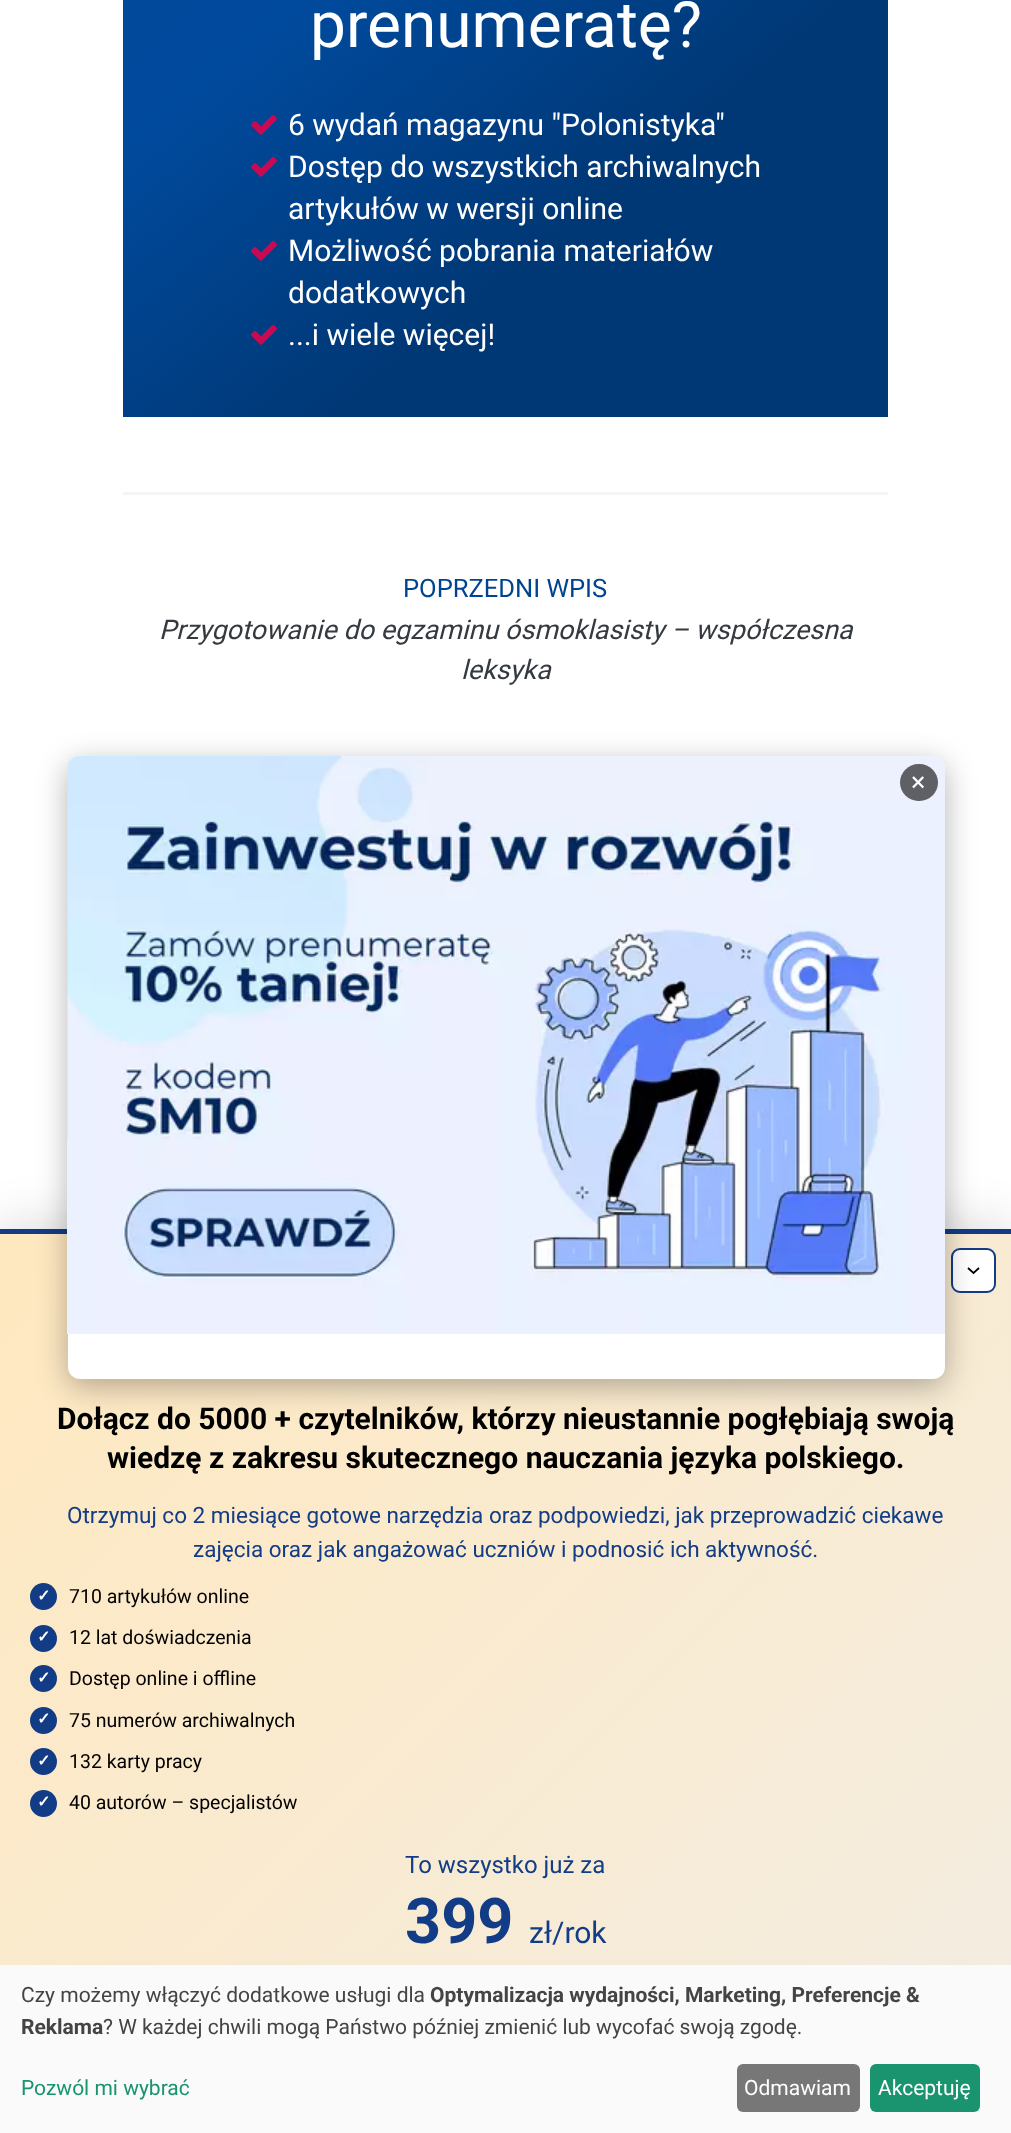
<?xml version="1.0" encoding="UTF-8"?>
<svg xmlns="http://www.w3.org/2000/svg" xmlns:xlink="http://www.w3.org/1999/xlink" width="1011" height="2133">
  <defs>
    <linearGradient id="g1" gradientUnits="userSpaceOnUse" x1="63" y1="-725" x2="948" y2="368"><stop offset="0" stop-color="#004490" /><stop offset="0.51" stop-color="#004a9d" /><stop offset="0.75" stop-color="#003876" /></linearGradient>
    <linearGradient id="g2" gradientUnits="userSpaceOnUse" x1="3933" y1="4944" x2="111" y2="1122"><stop offset="0" stop-color="#e5e5e5" /><stop offset="0.33" stop-color="#efe6e6" /><stop offset="0.67" stop-color="#efefef" /><stop offset="1" stop-color="#ffe8bf" /></linearGradient>
  </defs>
  <rect width="100%" height="100%" fill="#ffffff" />
  <rect x="123" width="765" height="417" fill="url(#g1)" />
  <image x="251" y="114" width="26" height="21" xlink:href="image1.png" />
  <image x="251" y="156" width="26" height="21" xlink:href="image2.png" />
  <image x="251" y="240" width="26" height="21" xlink:href="image3.png" />
  <image x="251" y="324" width="26" height="21" xlink:href="image4.png" />
  <rect y="1221" width="1011" height="905" fill="#000000" fill-opacity="0.12" filter="blur(22.5px)" />
  <rect y="1234" width="1011" height="731" fill="url(#g2)" />
  <rect y="1229" width="1011" height="5" fill="#123c86" />
  <rect x="952" y="1249" width="43" height="43" rx="8" fill="#ffffff" stroke="#123c86" stroke-width="2" />
  <path d="M 968 1268 l 5.5 5 l 5.5 -5" fill="none" stroke="#000000" stroke-width="1.8" />
  <circle cx="43.5" cy="1596.5" r="13.5" fill="#123c86" />
  <circle cx="43.5" cy="1638.5" r="13.5" fill="#123c86" />
  <circle cx="43.5" cy="1678.5" r="13.5" fill="#123c86" />
  <circle cx="43.5" cy="1720.5" r="13.5" fill="#123c86" />
  <circle cx="43.5" cy="1761.5" r="13.5" fill="#123c86" />
  <circle cx="43.5" cy="1803.5" r="13.5" fill="#123c86" />
  <rect x="30" y="1979" width="951" height="84" rx="12" fill="#969696" fill-opacity="0.25" filter="blur(10.5px)" />
  <rect x="123" y="492" width="765" height="3" fill="#f5f5f5" />
  <rect x="68" y="764" width="877" height="622" rx="12" fill="#000000" fill-opacity="0.3" filter="blur(15px)" />
  <rect x="68" y="756" width="877" height="623" rx="12" fill="#ffffff" />
  <image x="67" y="756" width="878" height="578" xlink:href="image5.png" />
  <rect x="900" y="764" width="38" height="37" rx="18.5" fill="#5e6065" />
  <rect y="1965" width="1011" height="168" fill="#fafafa" />
  <rect x="737" y="2064" width="123" height="48" rx="6" fill="#777777" />
  <rect x="870" y="2064" width="110" height="48" rx="6" fill="#1a936f" />
  <text x="310" y="47" style="font-family: Roboto; font-size: 64px; fill: #ffffff">prenumeratę?</text>
  <text x="288" y="135" style="font-family: Roboto; font-size: 30px; fill: #ffffff">6 wydań magazynu "Polonistyka"</text>
  <text x="288" y="177" style="font-family: Roboto; font-size: 30px; fill: #ffffff">Dostęp do wszystkich archiwalnych</text>
  <text x="288" y="219" style="font-family: Roboto; font-size: 30px; fill: #ffffff">artykułów w wersji online</text>
  <text x="288" y="261" style="font-family: Roboto; font-size: 30px; fill: #ffffff">Możliwość pobrania materiałów</text>
  <text x="288" y="303" style="font-family: Roboto; font-size: 30px; fill: #ffffff">dodatkowych</text>
  <text x="288" y="345" style="font-family: Roboto; font-size: 30px; fill: #ffffff">...i wiele więcej!</text>
  <text x="57" y="1429" style="font-family: Roboto; font-size: 30px; font-weight: bold; fill: #000000">Dołącz do 5000 + czytelników, którzy nieustannie pogłębiają swoją</text>
  <text x="107" y="1468" style="font-family: Roboto; font-size: 30px; font-weight: bold; fill: #000000">wiedzę z zakresu skutecznego nauczania języka polskiego.</text>
  <text x="67" y="1523" style="font-family: Roboto; font-size: 22.5px; fill: #123c86">Otrzymuj co 2 miesiące gotowe narzędzia oraz podpowiedzi, jak przeprowadzić ciekawe</text>
  <text x="193" y="1557" style="font-family: Roboto; font-size: 22.5px; fill: #123c86">zajęcia oraz jak angażować uczniów i podnosić ich aktywność.</text>
  <text x="37" y="1601" style="font-family: DejaVu Sans; font-size: 16px; font-weight: bold; fill: #ffffff">✓</text>
  <text x="69" y="1603" style="font-family: Roboto; font-size: 19.5px; fill: #000000">710 artykułów online</text>
  <text x="37" y="1642" style="font-family: DejaVu Sans; font-size: 16px; font-weight: bold; fill: #ffffff">✓</text>
  <text x="69" y="1644" style="font-family: Roboto; font-size: 19.5px; fill: #000000">12 lat doświadczenia</text>
  <text x="37" y="1683" style="font-family: DejaVu Sans; font-size: 16px; font-weight: bold; fill: #ffffff">✓</text>
  <text x="69" y="1685" style="font-family: Roboto; font-size: 19.5px; fill: #000000">Dostęp online i offline</text>
  <text x="37" y="1724" style="font-family: DejaVu Sans; font-size: 16px; font-weight: bold; fill: #ffffff">✓</text>
  <text x="69" y="1727" style="font-family: Roboto; font-size: 19.5px; fill: #000000">75 numerów archiwalnych</text>
  <text x="37" y="1766" style="font-family: DejaVu Sans; font-size: 16px; font-weight: bold; fill: #ffffff">✓</text>
  <text x="69" y="1768" style="font-family: Roboto; font-size: 19.5px; fill: #000000">132 karty pracy</text>
  <text x="37" y="1807" style="font-family: DejaVu Sans; font-size: 16px; font-weight: bold; fill: #ffffff">✓</text>
  <text x="69" y="1809" style="font-family: Roboto; font-size: 19.5px; fill: #000000">40 autorów – specjalistów</text>
  <text x="405" y="1873" style="font-family: Roboto; font-size: 24px; fill: #123c86">To wszystko już za</text>
  <text x="405" y="1943" style="font-family: Roboto; font-size: 63px; font-weight: bold; fill: #123c86">399</text>
  <text x="529" y="1943" style="font-family: Roboto; font-size: 30px; fill: #123c86">zł/rok</text>
  <text x="403" y="597" style="font-family: Roboto; font-size: 25.5px; fill: #004490">POPRZEDNI WPIS</text>
  <text x="159" y="639" style="font-family: Roboto; font-size: 27px; font-style: italic; fill: #343a40">Przygotowanie do egzaminu ósmoklasisty – współczesna</text>
  <text x="461" y="679" style="font-family: Roboto; font-size: 27px; font-style: italic; fill: #343a40">leksyka</text>
  <text x="911" y="791" style="font-family: Roboto; font-size: 27px; fill: #ffffff">×</text>
  <text x="21" y="2002" style="font-family: Roboto; font-size: 21px; fill: #444444">Czy możemy włączyć dodatkowe usługi dla</text>
  <text x="430" y="2002" style="font-family: Roboto; font-size: 21px; font-weight: bold; fill: #444444">Optymalizacja wydajności, Marketing, Preferencje &amp;</text>
  <text x="21" y="2034" style="font-family: Roboto; font-size: 21px; font-weight: bold; fill: #444444">Reklama</text>
  <text x="103" y="2034" style="font-family: Roboto; font-size: 21px; fill: #444444">? W każdej chwili mogą Państwo później zmienić lub wycofać swoją zgodę.</text>
  <text x="21" y="2095" style="font-family: Roboto; font-size: 21px; fill: #1a936f">Pozwól mi wybrać</text>
  <text x="744" y="2095" style="font-family: Roboto; font-size: 21px; fill: #ffffff">Odmawiam</text>
  <text x="878" y="2095" style="font-family: Roboto; font-size: 21px; fill: #ffffff">Akceptuję</text>
</svg>
